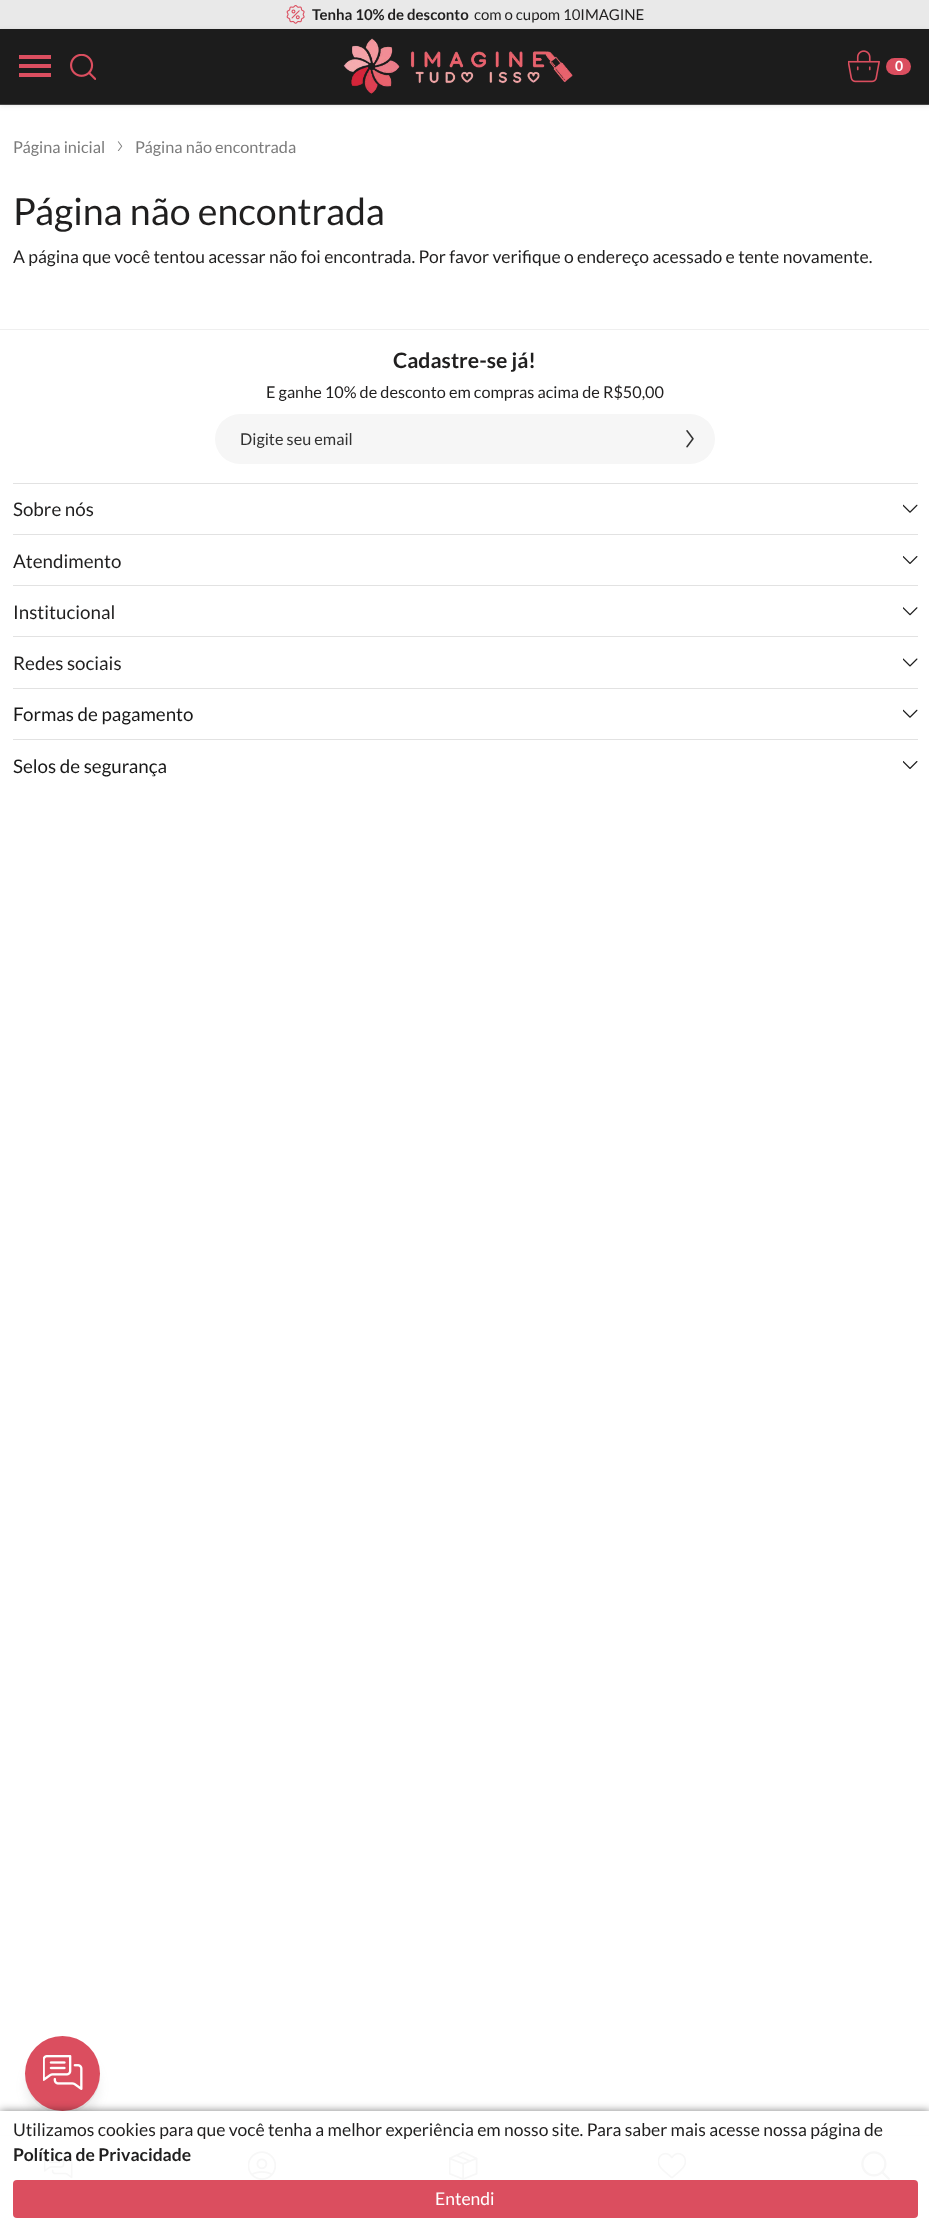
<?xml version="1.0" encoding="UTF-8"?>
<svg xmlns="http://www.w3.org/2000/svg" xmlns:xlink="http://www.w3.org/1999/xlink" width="929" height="2223">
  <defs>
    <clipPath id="clip1"><path d="M 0 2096 h 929 v 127 h -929 z m 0 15 h 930 v 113 h -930 z" clip-rule="evenodd" /></clipPath>
  </defs>
  <rect width="100%" height="100%" fill="#ffffff" />
  <rect width="929" height="29" fill="#e9e9e9" />
  <image x="286" y="5" width="19" height="19" xlink:href="image1.png" />
  <rect y="30" width="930" height="76" fill="#525252" fill-opacity="0.13" filter="blur(2.5px)" />
  <rect y="29" width="929" height="75" fill="#1c1c1c" />
  <rect y="104" width="929" height="1" fill="#444444" />
  <rect x="19" y="73" width="32" height="4" fill="#db4e5f" />
  <rect x="19" y="64" width="32" height="4" fill="#db4e5f" />
  <rect x="19" y="55" width="32" height="4" fill="#db4e5f" />
  <image x="70" y="54" width="26" height="26" xlink:href="image2.png" />
  <image x="343" y="38" width="230" height="56" xlink:href="image3.png" />
  <image x="848" y="50" width="32" height="33" xlink:href="image4.png" />
  <rect x="886" y="58" width="25" height="17" rx="8.5" fill="#db4e5f" />
  <image x="117" y="141" width="6" height="10" xlink:href="image5.png" />
  <rect y="329" width="929" height="1" fill="#efefef" />
  <rect x="215" y="414" width="500" height="50" rx="25" fill="#f6f6f6" />
  <image x="686" y="430" width="8" height="18" xlink:href="image6.png" />
  <rect x="13" y="483" width="905" height="1" fill="#e2e2e2" />
  <image x="903" y="504" width="15" height="9" xlink:href="image7.png" />
  <rect x="13" y="534" width="905" height="1" fill="#e2e2e2" />
  <image x="903" y="556" width="15" height="8" xlink:href="image8.png" />
  <rect x="13" y="585" width="905" height="1" fill="#e2e2e2" />
  <image x="903" y="607" width="15" height="9" xlink:href="image9.png" />
  <rect x="13" y="636" width="905" height="1" fill="#e2e2e2" />
  <image x="903" y="658" width="15" height="9" xlink:href="image10.png" />
  <rect x="13" y="688" width="905" height="1" fill="#e2e2e2" />
  <image x="903" y="709" width="15" height="9" xlink:href="image11.png" />
  <rect x="13" y="739" width="905" height="1" fill="#e2e2e2" />
  <image x="903" y="761" width="15" height="8" xlink:href="image12.png" />
  <rect x="25" y="2049" width="75" height="75" rx="37.5" fill="#676767" fill-opacity="0.1" filter="blur(5px)" />
  <rect x="25" y="2039" width="75" height="75" rx="37.5" fill="#000000" fill-opacity="0.04" filter="blur(0.5px)" />
  <circle cx="62.5" cy="2073.5" r="37.5" fill="#db4e5f" />
  <image x="43" y="2055" width="40" height="35" xlink:href="image13.png" />
  <rect y="2135" width="929" height="1" fill="#e2e2e2" />
  <image x="44" y="2153" width="29" height="26" xlink:href="image14.png" />
  <image x="248" y="2151" width="28" height="29" xlink:href="image15.png" />
  <image x="449" y="2151" width="29" height="29" xlink:href="image16.png" />
  <image x="658" y="2152" width="28" height="27" xlink:href="image17.png" />
  <image x="861" y="2151" width="29" height="29" xlink:href="image18.png" />
  <g clip-path="url(#clip1)">
    <rect y="2111" width="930" height="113" fill="#000000" fill-opacity="0.5" filter="blur(4.5px)" />
  </g>
  <rect y="2111" width="929" height="69" fill="#ffffff" fill-opacity="0.95" />
  <rect x="13" y="2180" width="905" height="38" rx="4" fill="#db4e5f" />
  <text x="312" y="20" style="font-family: Lato; font-size: 15px; font-weight: bold; fill: #201f1f">Tenha 10% de desconto</text>
  <text x="474" y="20" style="font-family: Lato; font-size: 15px; fill: #201f1f">com o cupom 10IMAGINE</text>
  <text x="895" y="71" style="font-family: Lato; font-size: 14px; font-weight: bold; fill: #ffffff">0</text>
  <text x="13" y="153" style="font-family: Lato; font-size: 16.25px; fill: #7b7b7b">Página inicial</text>
  <text x="135" y="153" style="font-family: Lato; font-size: 16.25px; fill: #7b7b7b">Página não encontrada</text>
  <text x="13" y="225" style="font-family: Lato; font-size: 37.5px; fill: #201f1f">Página não encontrada</text>
  <text x="13" y="263" style="font-family: Lato; font-size: 17.5px; fill: #201f1f">A página que você tentou acessar não foi encontrada. Por favor verifique o endereço acessado e tente novamente.</text>
  <text x="393" y="368" style="font-family: Lato; font-size: 21.25px; font-weight: bold; fill: #201f1f">Cadastre-se já!</text>
  <text x="266" y="398" style="font-family: Lato; font-size: 16.25px; fill: #201f1f">E ganhe 10% de desconto em compras acima de R$50,00</text>
  <text x="240" y="445" style="font-family: Lato; font-size: 16.25px; fill: #323232">Digite seu email</text>
  <text x="13" y="516" style="font-family: Lato; font-size: 18.75px; fill: #201f1f">Sobre nós</text>
  <text x="13" y="568" style="font-family: Lato; font-size: 18.75px; fill: #201f1f">Atendimento</text>
  <text x="13" y="619" style="font-family: Lato; font-size: 18.75px; fill: #201f1f">Institucional</text>
  <text x="13" y="670" style="font-family: Lato; font-size: 18.75px; fill: #201f1f">Redes sociais</text>
  <text x="13" y="721" style="font-family: Lato; font-size: 18.75px; fill: #181818">Formas de pagamento</text>
  <text x="13" y="773" style="font-family: Lato; font-size: 18.75px; fill: #181818">Selos de segurança</text>
  <text x="13" y="2136" style="font-family: Lato; font-size: 17.5px; fill: #201f1f">Utilizamos cookies para que você tenha a melhor experiência em nosso site. Para saber mais acesse nossa página de</text>
  <text x="13" y="2161" style="font-family: Lato; font-size: 17.5px; font-weight: bold; fill: #201f1f">Política de Privacidade</text>
  <text x="435" y="2205" style="font-family: Lato; font-size: 17.5px; fill: #ffffff">Entendi</text>
</svg>
